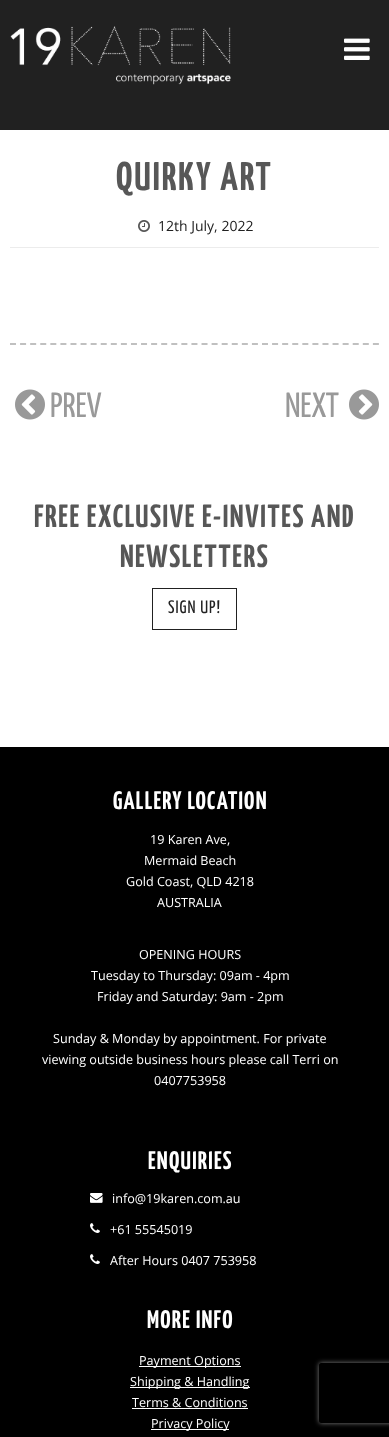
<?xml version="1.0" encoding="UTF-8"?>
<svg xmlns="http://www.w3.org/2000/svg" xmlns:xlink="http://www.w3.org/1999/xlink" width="389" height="1437">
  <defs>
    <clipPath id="clip1"><path d="M 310 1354 h 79 v 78 h -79 z m 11 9 h 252 c 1 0 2 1 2 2 v 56 c 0 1 -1 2 -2 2 h -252 c -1 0 -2 -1 -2 -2 v -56 c 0 -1 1 -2 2 -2 z" clip-rule="evenodd" /></clipPath>
  </defs>
  <rect width="100%" height="100%" fill="#ffffff" />
  <rect width="389" height="130" fill="#212121" />
  <image x="10" y="26" width="221" height="59" xlink:href="image1.png" />
  <image x="344" y="38" width="26" height="22" xlink:href="image2.png" />
  <rect x="10" y="247" width="369" height="1" fill="#ececec" />
  <image x="138" y="220" width="12" height="12" xlink:href="image3.png" />
  <path d="M 10 344 h 369" fill="none" stroke="#c0c0c0" stroke-width="2" stroke-dasharray="6 4.08" />
  <image x="15" y="389" width="30" height="31" xlink:href="image4.png" />
  <image x="349" y="389" width="30" height="31" xlink:href="image5.png" />
  <rect x="152.5" y="588.5" width="84" height="41" fill="none" stroke="#212121" />
  <rect y="747" width="389" height="690" fill="#000000" />
  <image x="90" y="1193" width="13" height="10" xlink:href="image6.png" />
  <image x="90" y="1223" width="10" height="10" xlink:href="image7.png" />
  <image x="90" y="1254" width="10" height="10" xlink:href="image7.png" />
  <rect x="139" y="1366" width="102" height="1" fill="#ffffff" />
  <rect x="130" y="1387" width="120" height="1" fill="#ffffff" />
  <rect x="132" y="1408" width="116" height="1" fill="#ffffff" />
  <rect x="151" y="1429" width="78" height="1" fill="#ffffff" />
  <g clip-path="url(#clip1)">
    <rect x="319" y="1363" width="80" height="60" rx="2" fill="#808080" filter="blur(2.5px)" />
  </g>
  <text x="116" y="190" style="font-family: Yanone Kaffeesatz; font-size: 40px; font-weight: bold; letter-spacing: 2px; fill: #575757">QUIRKY ART</text>
  <text x="158" y="231" style="font-family: Open Sans; font-size: 14px; fill: #212121">12th July, 2022</text>
  <text x="50" y="417" style="font-family: Yanone Kaffeesatz; font-size: 35px; fill: #999999">PREV</text>
  <text x="285" y="417" style="font-family: Yanone Kaffeesatz; font-size: 35px; fill: #999999">NEXT</text>
  <text x="34" y="527" style="font-family: Yanone Kaffeesatz; font-size: 32px; font-weight: bold; letter-spacing: 1.6px; fill: #575757">FREE EXCLUSIVE E-INVITES AND</text>
  <text x="120" y="567" style="font-family: Yanone Kaffeesatz; font-size: 32px; font-weight: bold; letter-spacing: 1.6px; fill: #575757">NEWSLETTERS</text>
  <text x="168" y="613" style="font-family: Yanone Kaffeesatz; font-size: 18px; letter-spacing: 1px; fill: #212121">SIGN UP!</text>
  <text x="113" y="809" style="font-family: Yanone Kaffeesatz; font-size: 25.25px; font-weight: bold; letter-spacing: 1.25px; fill: #ffffff">GALLERY LOCATION</text>
  <text x="150" y="844" style="font-family: Open Sans; font-size: 12.6px; fill: #ffffff">19 Karen Ave,</text>
  <text x="144" y="865" style="font-family: Open Sans; font-size: 12.6px; fill: #ffffff">Mermaid Beach</text>
  <text x="126" y="886" style="font-family: Open Sans; font-size: 12.6px; fill: #ffffff">Gold Coast, QLD 4218</text>
  <text x="157" y="907" style="font-family: Open Sans; font-size: 12.6px; fill: #ffffff">AUSTRALIA</text>
  <text x="139" y="959" style="font-family: Open Sans; font-size: 12.6px; fill: #ffffff">OPENING HOURS</text>
  <text x="91" y="980" style="font-family: Open Sans; font-size: 12.6px; fill: #ffffff">Tuesday to Thursday: 09am - 4pm</text>
  <text x="97" y="1001" style="font-family: Open Sans; font-size: 12.6px; fill: #ffffff">Friday and Saturday: 9am - 2pm</text>
  <text x="53" y="1043" style="font-family: Open Sans; font-size: 12.6px; fill: #ffffff">Sunday &amp; Monday by appointment. For private</text>
  <text x="42" y="1064" style="font-family: Open Sans; font-size: 12.6px; fill: #ffffff">viewing outside business hours please call Terri on</text>
  <text x="154" y="1085" style="font-family: Open Sans; font-size: 12.6px; fill: #ffffff">0407753958</text>
  <text x="148" y="1169" style="font-family: Yanone Kaffeesatz; font-size: 25.25px; font-weight: bold; letter-spacing: 1.25px; fill: #ffffff">ENQUIRIES</text>
  <text x="112" y="1203" style="font-family: Open Sans; font-size: 12.6px; fill: #ffffff">info@19karen.com.au</text>
  <text x="110" y="1234" style="font-family: Open Sans; font-size: 12.6px; fill: #ffffff">+61 55545019</text>
  <text x="110" y="1265" style="font-family: Open Sans; font-size: 12.6px; fill: #ffffff">After Hours 0407 753958</text>
  <text x="147" y="1328" style="font-family: Yanone Kaffeesatz; font-size: 25.25px; font-weight: bold; letter-spacing: 1.25px; fill: #ffffff">MORE INFO</text>
  <text x="139" y="1365" style="font-family: Open Sans; font-size: 12.6px; fill: #ffffff">Payment Options</text>
  <text x="130" y="1386" style="font-family: Open Sans; font-size: 12.6px; fill: #ffffff">Shipping &amp; Handling</text>
  <text x="132" y="1407" style="font-family: Open Sans; font-size: 12.6px; fill: #ffffff">Terms &amp; Conditions</text>
  <text x="151" y="1428" style="font-family: Open Sans; font-size: 12.6px; fill: #ffffff">Privacy Policy</text>
</svg>
